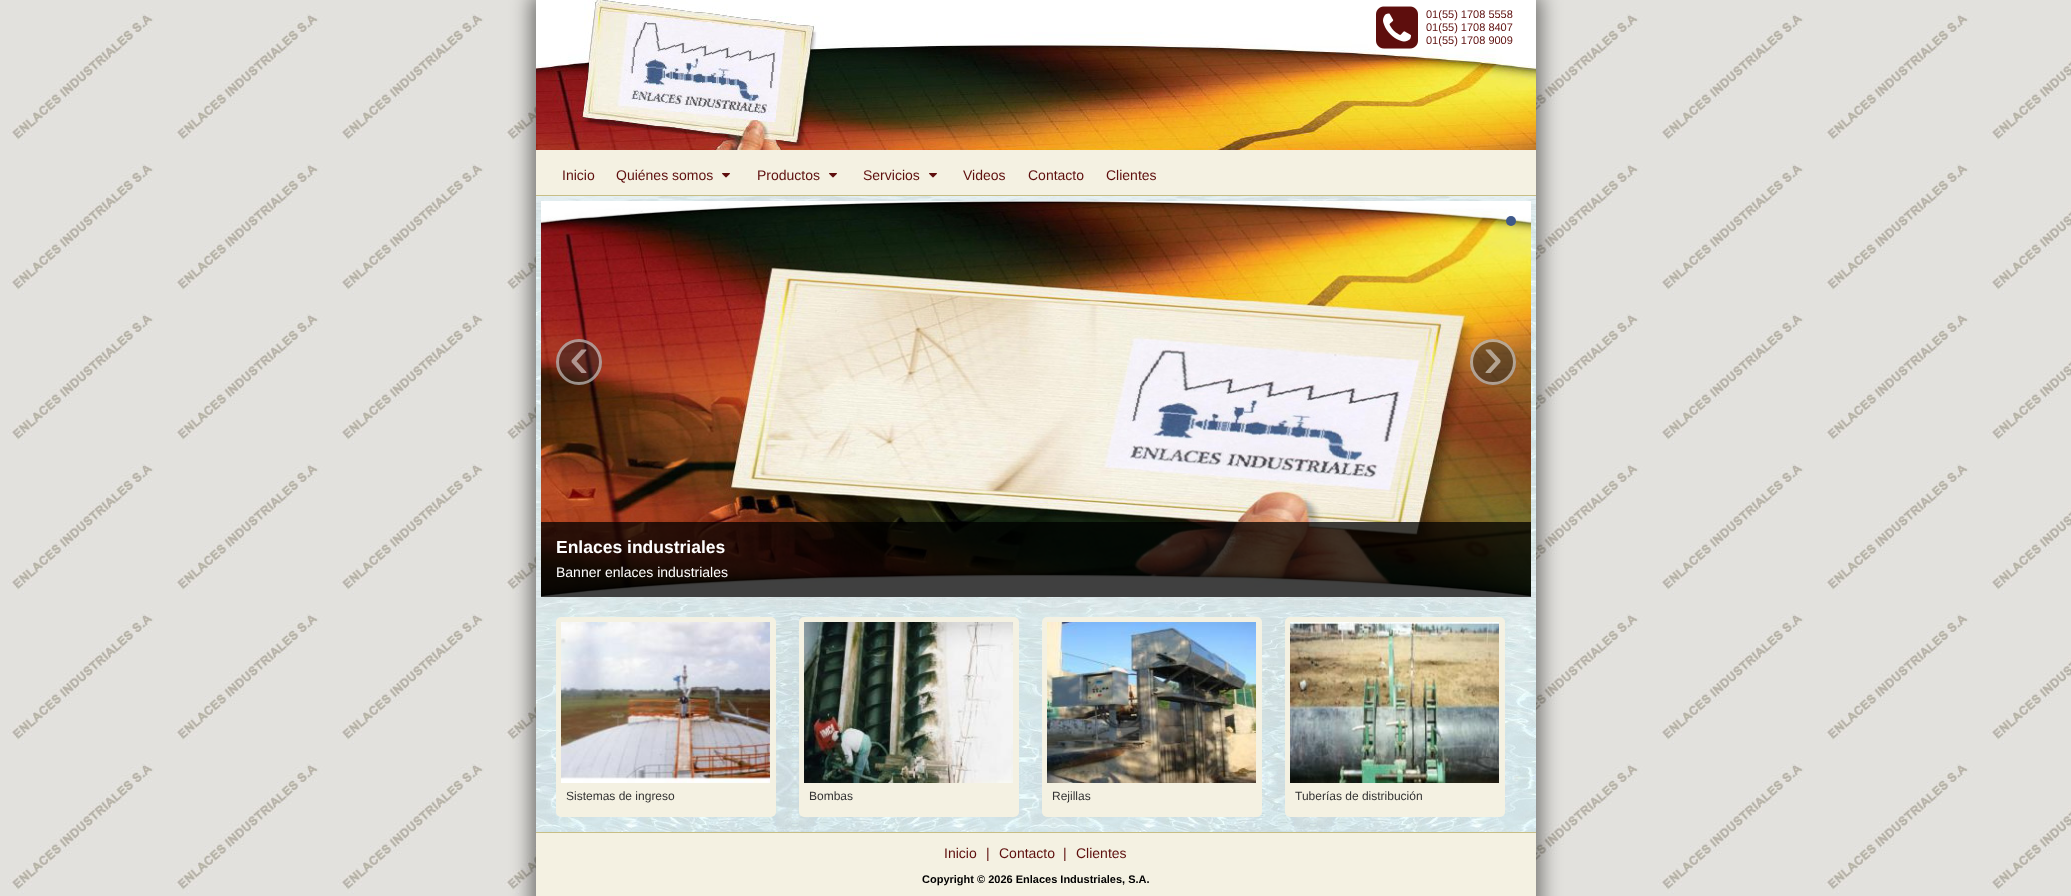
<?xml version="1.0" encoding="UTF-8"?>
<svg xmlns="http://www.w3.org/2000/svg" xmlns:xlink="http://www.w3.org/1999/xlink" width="2071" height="896">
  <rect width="100%" height="100%" fill="#ffffff" />
  <image x="0" y="0" width="2071" height="896" xlink:href="image1.png" />
  <rect x="531" y="-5" width="1010" height="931" fill="#000000" fill-opacity="0.5" filter="blur(10px)" />
  <image x="536" y="0" width="1000" height="150" xlink:href="image2.png" />
  <image x="1376" y="6" width="42" height="43" xlink:href="image3.png" />
  <rect x="536" y="150" width="1000" height="45" fill="#f4f1e2" />
  <rect x="536" y="195" width="1000" height="1" fill="#c7be85" />
  <image x="722" y="173" width="8" height="5" xlink:href="image4.png" />
  <image x="829" y="173" width="8" height="5" xlink:href="image4.png" />
  <image x="929" y="173" width="8" height="5" xlink:href="image4.png" />
  <image x="536" y="196" width="1000" height="636" xlink:href="image5.png" />
  <image x="541" y="201" width="990" height="396" xlink:href="image6.png" />
  <circle cx="1511" cy="221" r="5" fill="#3e588a" />
  <circle cx="579" cy="362" r="23" fill="#222222" fill-opacity="0.5" />
  <circle cx="579" cy="362" r="21.5" fill="none" stroke="#ffffff" stroke-opacity="0.5" stroke-width="3" />
  <circle cx="1493" cy="362" r="23" fill="#222222" fill-opacity="0.5" />
  <circle cx="1493" cy="362" r="21.5" fill="none" stroke="#ffffff" stroke-opacity="0.5" stroke-width="3" />
  <rect x="541" y="522" width="990" height="75" fill="#000000" fill-opacity="0.75" />
  <rect x="556" y="617" width="220" height="200" rx="5" fill="#f4f1e2" />
  <image x="561" y="622" width="209" height="161" xlink:href="image7.png" />
  <rect x="799" y="617" width="220" height="200" rx="5" fill="#f4f1e2" />
  <image x="804" y="622" width="209" height="161" xlink:href="image8.png" />
  <rect x="1042" y="617" width="220" height="200" rx="5" fill="#f4f1e2" />
  <image x="1047" y="622" width="209" height="161" xlink:href="image9.png" />
  <rect x="1285" y="617" width="220" height="200" rx="5" fill="#f4f1e2" />
  <image x="1290" y="622" width="209" height="161" xlink:href="image10.png" />
  <rect x="536" y="833" width="1000" height="63" fill="#f4f1e2" />
  <rect x="536" y="832" width="1000" height="1" fill="#c7be85" />
  <text x="1426" y="18" style="font-family: Liberation Sans; font-size: 11px; fill: #5e0e0d">01(55) 1708 5558</text>
  <text x="1426" y="31" style="font-family: Liberation Sans; font-size: 11px; fill: #5e0e0d">01(55) 1708 8407</text>
  <text x="1426" y="44" style="font-family: Liberation Sans; font-size: 11px; fill: #5e0e0d">01(55) 1708 9009</text>
  <text x="562" y="180" style="font-family: Liberation Sans; font-size: 14px; fill: #5e0e0d">Inicio</text>
  <text x="616" y="180" style="font-family: Liberation Sans; font-size: 14px; fill: #5e0e0d">Quiénes somos</text>
  <text x="757" y="180" style="font-family: Liberation Sans; font-size: 14px; fill: #5e0e0d">Productos</text>
  <text x="863" y="180" style="font-family: Liberation Sans; font-size: 14px; fill: #5e0e0d">Servicios</text>
  <text x="963" y="180" style="font-family: Liberation Sans; font-size: 14px; fill: #5e0e0d">Videos</text>
  <text x="1028" y="180" style="font-family: Liberation Sans; font-size: 14px; fill: #5e0e0d">Contacto</text>
  <text x="1106" y="180" style="font-family: Liberation Sans; font-size: 14px; fill: #5e0e0d">Clientes</text>
  <text x="569" y="377" style="font-family: Liberation Sans; font-size: 60px; fill: #b09590">‹</text>
  <text x="1483" y="377" style="font-family: Liberation Sans; font-size: 60px; fill: #b4a492">›</text>
  <text x="556" y="553" style="font-family: Liberation Sans; font-size: 17.5px; font-weight: bold; fill: #ffffff">Enlaces industriales</text>
  <text x="556" y="577" style="font-family: Liberation Sans; font-size: 14px; fill: #ffffff">Banner enlaces industriales</text>
  <text x="566" y="800" style="font-family: Liberation Sans; font-size: 12px; fill: #333333">Sistemas de ingreso</text>
  <text x="809" y="800" style="font-family: Liberation Sans; font-size: 12px; fill: #333333">Bombas</text>
  <text x="1052" y="800" style="font-family: Liberation Sans; font-size: 12px; fill: #333333">Rejillas</text>
  <text x="1295" y="800" style="font-family: Liberation Sans; font-size: 12px; fill: #333333">Tuberías de distribución</text>
  <text x="944" y="858" style="font-family: Liberation Sans; font-size: 14px; fill: #5e0e0d">Inicio</text>
  <text x="986" y="858" style="font-family: Liberation Sans; font-size: 14px; fill: #5e0e0d">|</text>
  <text x="999" y="858" style="font-family: Liberation Sans; font-size: 14px; fill: #5e0e0d">Contacto</text>
  <text x="1063" y="858" style="font-family: Liberation Sans; font-size: 14px; fill: #5e0e0d">|</text>
  <text x="1076" y="858" style="font-family: Liberation Sans; font-size: 14px; fill: #5e0e0d">Clientes</text>
  <text x="922" y="883" style="font-family: Liberation Sans; font-size: 11px; font-weight: bold; fill: #000000">Copyright © 2026 Enlaces Industriales, S.A.</text>
</svg>
